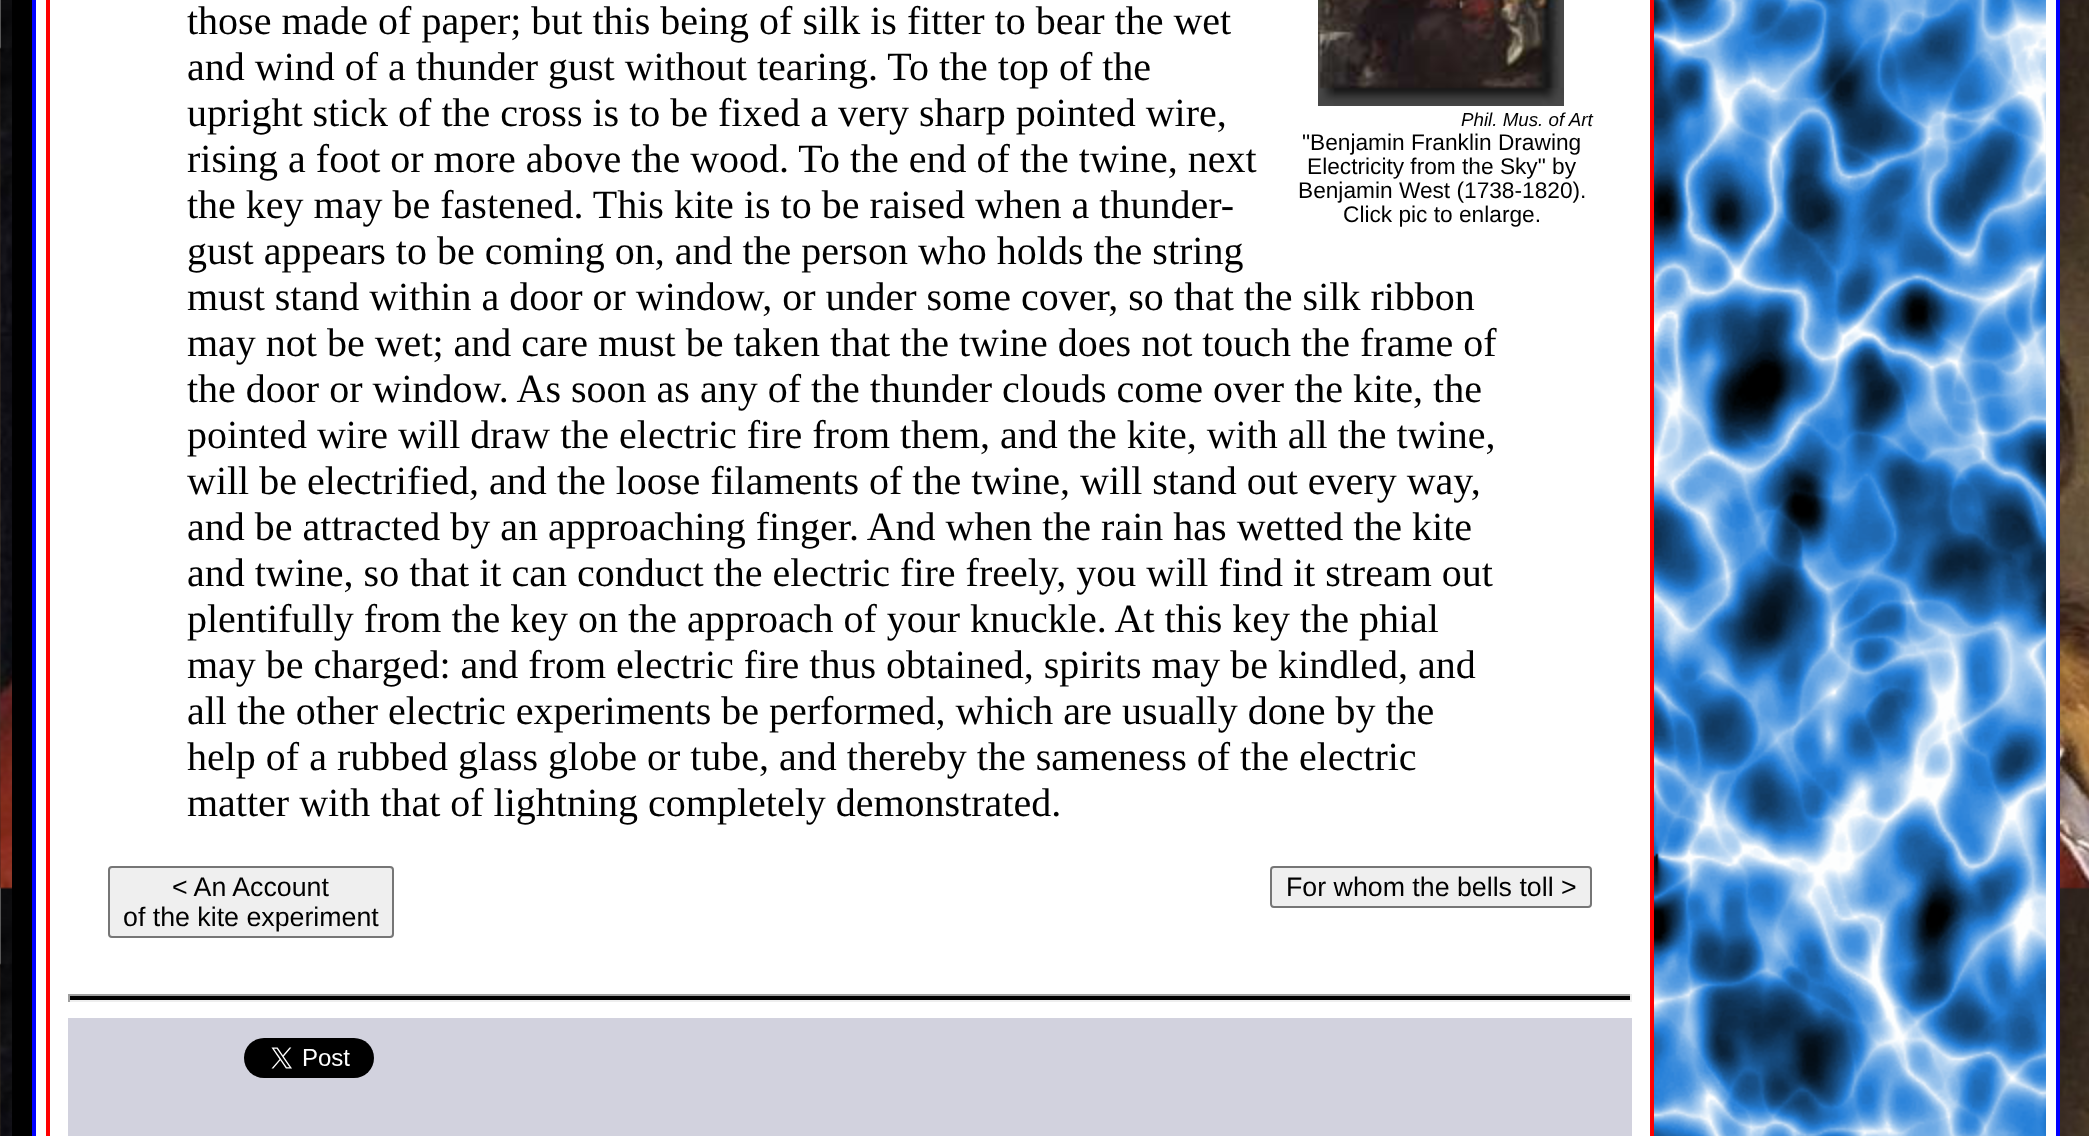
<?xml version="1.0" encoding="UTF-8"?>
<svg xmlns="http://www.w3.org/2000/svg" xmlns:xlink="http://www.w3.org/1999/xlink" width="2089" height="1136">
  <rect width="100%" height="100%" fill="#ffffff" />
  <image x="0" y="0" width="2089" height="1136" xlink:href="image1.png" />
  <path d="M 33 -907 c -12 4 -21 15 -21 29 v 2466 c 0 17 13 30 30 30 h 1968 c 14 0 25 -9 29 -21 c -3 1 -6 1 -9 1 h -1968 c -17 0 -30 -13 -30 -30 v -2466 c 0 -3 0 -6 1 -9 z" fill="#000000" />
  <rect x="34" y="-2" width="2024" height="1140" fill="#ffffff" stroke="#0000ff" stroke-width="4" />
  <rect x="48" y="-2" width="1604" height="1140" fill="none" stroke="#ff0000" stroke-width="4" />
  <image x="1318" y="0" width="246" height="106" xlink:href="image2.png" />
  <rect x="109" y="867" width="284" height="70" rx="3" fill="#efefef" stroke="#767676" stroke-width="2" />
  <rect x="1271" y="867" width="320" height="40" rx="3" fill="#efefef" stroke="#767676" stroke-width="2" />
  <rect x="68" y="996" width="1564" height="4" fill="#000000" />
  <rect x="68" y="994" width="1564" height="2" fill="#9f9f9f" />
  <rect x="1630" y="994" width="2" height="8" fill="#eeeeee" />
  <rect x="68" y="1000" width="1564" height="2" fill="#eeeeee" />
  <rect x="68" y="994" width="2" height="8" fill="#9f9f9f" />
  <rect x="68" y="1018" width="1564" height="118" fill="#d2d2de" />
  <image x="244" y="1038" width="130" height="40" xlink:href="image3.png" />
  <image x="1654" y="0" width="392" height="1136" xlink:href="image4.png" />
  <text x="187" y="34" style="font-family: Liberation Serif; font-size: 40px; fill: #000000">those made of paper; but this being of silk is fitter to bear the wet</text>
  <text x="187" y="80" style="font-family: Liberation Serif; font-size: 40px; fill: #000000">and wind of a thunder gust without tearing. To the top of the</text>
  <text x="187" y="126" style="font-family: Liberation Serif; font-size: 40px; fill: #000000">upright stick of the cross is to be fixed a very sharp pointed wire,</text>
  <text x="187" y="172" style="font-family: Liberation Serif; font-size: 40px; fill: #000000">rising a foot or more above the wood. To the end of the twine, next</text>
  <text x="187" y="218" style="font-family: Liberation Serif; font-size: 40px; fill: #000000">the key may be fastened. This kite is to be raised when a thunder-</text>
  <text x="187" y="264" style="font-family: Liberation Serif; font-size: 40px; fill: #000000">gust appears to be coming on, and the person who holds the string</text>
  <text x="187" y="310" style="font-family: Liberation Serif; font-size: 40px; fill: #000000">must stand within a door or window, or under some cover, so that the silk ribbon</text>
  <text x="187" y="356" style="font-family: Liberation Serif; font-size: 40px; fill: #000000">may not be wet; and care must be taken that the twine does not touch the frame of</text>
  <text x="187" y="402" style="font-family: Liberation Serif; font-size: 40px; fill: #000000">the door or window. As soon as any of the thunder clouds come over the kite, the</text>
  <text x="187" y="448" style="font-family: Liberation Serif; font-size: 40px; fill: #000000">pointed wire will draw the electric fire from them, and the kite, with all the twine,</text>
  <text x="187" y="494" style="font-family: Liberation Serif; font-size: 40px; fill: #000000">will be electrified, and the loose filaments of the twine, will stand out every way,</text>
  <text x="187" y="540" style="font-family: Liberation Serif; font-size: 40px; fill: #000000">and be attracted by an approaching finger. And when the rain has wetted the kite</text>
  <text x="187" y="586" style="font-family: Liberation Serif; font-size: 40px; fill: #000000">and twine, so that it can conduct the electric fire freely, you will find it stream out</text>
  <text x="187" y="632" style="font-family: Liberation Serif; font-size: 40px; fill: #000000">plentifully from the key on the approach of your knuckle. At this key the phial</text>
  <text x="187" y="678" style="font-family: Liberation Serif; font-size: 40px; fill: #000000">may be charged: and from electric fire thus obtained, spirits may be kindled, and</text>
  <text x="187" y="724" style="font-family: Liberation Serif; font-size: 40px; fill: #000000">all the other electric experiments be performed, which are usually done by the</text>
  <text x="187" y="770" style="font-family: Liberation Serif; font-size: 40px; fill: #000000">help of a rubbed glass globe or tube, and thereby the sameness of the electric</text>
  <text x="187" y="816" style="font-family: Liberation Serif; font-size: 40px; fill: #000000">matter with that of lightning completely demonstrated.</text>
  <text x="1461" y="126" style="font-family: Liberation Sans; font-size: 18.75px; font-style: italic; fill: #000000">Phil. Mus. of Art</text>
  <text x="1302" y="150" style="font-family: Liberation Sans; font-size: 22.7px; fill: #000000">"Benjamin Franklin Drawing</text>
  <text x="1307" y="174" style="font-family: Liberation Sans; font-size: 22.7px; fill: #000000">Electricity from the Sky" by</text>
  <text x="1298" y="198" style="font-family: Liberation Sans; font-size: 22.7px; fill: #000000">Benjamin West (1738-1820).</text>
  <text x="1343" y="222" style="font-family: Liberation Sans; font-size: 22.7px; fill: #000000">Click pic to enlarge.</text>
  <text x="172" y="896" style="font-family: Liberation Sans; font-size: 26.75px; fill: #000000">&lt; An Account</text>
  <text x="123" y="926" style="font-family: Liberation Sans; font-size: 26.75px; fill: #000000">of the kite experiment</text>
  <text x="1286" y="896" style="font-family: Liberation Sans; font-size: 26.75px; fill: #000000">For whom the bells toll &gt;</text>
</svg>
